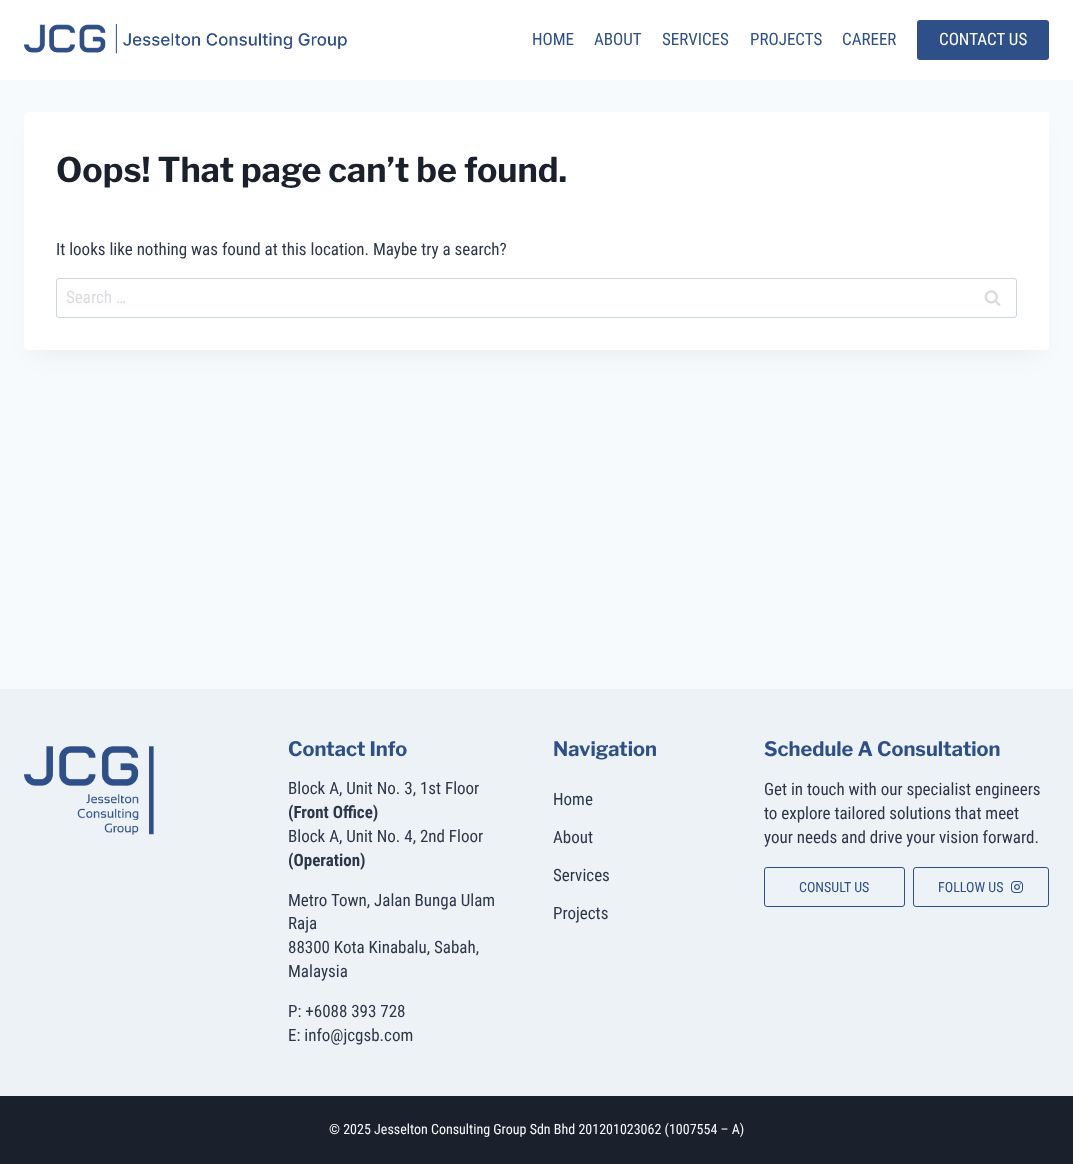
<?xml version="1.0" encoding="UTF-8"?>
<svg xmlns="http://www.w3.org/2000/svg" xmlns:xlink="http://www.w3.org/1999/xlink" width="1073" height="1164">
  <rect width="100%" height="100%" fill="#f7fafc" />
  <rect width="1073" height="80" fill="#ffffff" />
  <image x="24" y="24" width="323" height="30" xlink:href="image1.png" />
  <rect x="918" y="21" width="130" height="38" rx="2" fill="#2f4f88" stroke="#2f4f88" stroke-width="2" />
  <rect x="34" y="137" width="1005" height="218" fill="#000000" fill-opacity="0.05" filter="blur(12.5px)" />
  <rect x="24" y="112" width="1025" height="238" rx="4" fill="#ffffff" />
  <rect x="56.5" y="278.5" width="960" height="39" rx="2.5" fill="none" stroke="#cbd5e0" />
  <image x="984" y="290" width="17" height="16" xlink:href="image2.png" />
  <rect y="689" width="1073" height="407" fill="#edf2f7" />
  <image x="24" y="746" width="130" height="89" xlink:href="image3.png" />
  <rect x="764.5" y="867.5" width="140" height="39" rx="2.5" fill="none" stroke="#2f4f88" />
  <rect x="913.5" y="867.5" width="135" height="39" rx="2.5" fill="none" stroke="#2f4f88" />
  <image x="1011" y="881" width="12" height="12" xlink:href="image4.png" />
  <rect y="1096" width="1073" height="68" fill="#1a202c" />
  <text x="532" y="45" style="font-family: Roboto Condensed; font-size: 17px; fill: #2f4f88">HOME</text>
  <text x="594" y="45" style="font-family: Roboto Condensed; font-size: 17px; fill: #2f4f88">ABOUT</text>
  <text x="662" y="45" style="font-family: Roboto Condensed; font-size: 17px; fill: #2f4f88">SERVICES</text>
  <text x="750" y="45" style="font-family: Roboto Condensed; font-size: 17px; fill: #2f4f88">PROJECTS</text>
  <text x="842" y="45" style="font-family: Roboto Condensed; font-size: 17px; fill: #2f4f88">CAREER</text>
  <text x="939" y="45" style="font-family: Roboto Condensed; font-size: 17px; fill: #ffffff">CONTACT US</text>
  <text x="56" y="182" style="font-family: Libre Franklin; font-size: 34px; font-weight: 100; fill: #1a202c">Oops! That page can’t be found.</text>
  <text x="56" y="255" style="font-family: Roboto Condensed; font-size: 17px; fill: #2d3748">It looks like nothing was found at this location. Maybe try a search?</text>
  <text x="66" y="303" style="font-family: Roboto Condensed; font-size: 17px; fill: #dcdce0">Search …</text>
  <text x="288" y="756" style="font-family: Libre Franklin; font-size: 20px; font-weight: 100; fill: #2f4f88">Contact Info</text>
  <text x="288" y="794" style="font-family: Roboto Condensed; font-size: 17px; fill: #2d3748">Block A, Unit No. 3, 1st Floor</text>
  <text x="288" y="818" style="font-family: Roboto Condensed; font-size: 17px; font-weight: bold; fill: #2d3748">(Front Office)</text>
  <text x="288" y="842" style="font-family: Roboto Condensed; font-size: 17px; fill: #2d3748">Block A, Unit No. 4, 2nd Floor</text>
  <text x="288" y="866" style="font-family: Roboto Condensed; font-size: 17px; font-weight: bold; fill: #2d3748">(Operation)</text>
  <text x="288" y="906" style="font-family: Roboto Condensed; font-size: 17px; fill: #2d3748">Metro Town, Jalan Bunga Ulam</text>
  <text x="288" y="929" style="font-family: Roboto Condensed; font-size: 17px; fill: #2d3748">Raja</text>
  <text x="288" y="953" style="font-family: Roboto Condensed; font-size: 17px; fill: #2d3748">88300 Kota Kinabalu, Sabah,</text>
  <text x="288" y="977" style="font-family: Roboto Condensed; font-size: 17px; fill: #2d3748">Malaysia</text>
  <text x="288" y="1017" style="font-family: Roboto Condensed; font-size: 17px; fill: #2d3748">P: +6088 393 728</text>
  <text x="288" y="1041" style="font-family: Roboto Condensed; font-size: 17px; fill: #2d3748">E: info@jcgsb.com</text>
  <text x="553" y="756" style="font-family: Libre Franklin; font-size: 20px; font-weight: 100; fill: #2f4f88">Navigation</text>
  <text x="553" y="805" style="font-family: Roboto Condensed; font-size: 17px; fill: #2d3748">Home</text>
  <text x="553" y="843" style="font-family: Roboto Condensed; font-size: 17px; fill: #2d3748">About</text>
  <text x="553" y="881" style="font-family: Roboto Condensed; font-size: 17px; fill: #2d3748">Services</text>
  <text x="553" y="919" style="font-family: Roboto Condensed; font-size: 17px; fill: #2d3748">Projects</text>
  <text x="764" y="756" style="font-family: Libre Franklin; font-size: 20px; font-weight: 100; fill: #2f4f88">Schedule A Consultation</text>
  <text x="764" y="795" style="font-family: Roboto Condensed; font-size: 17px; fill: #2d3748">Get in touch with our specialist engineers</text>
  <text x="764" y="819" style="font-family: Roboto Condensed; font-size: 17px; fill: #2d3748">to explore tailored solutions that meet</text>
  <text x="764" y="843" style="font-family: Roboto Condensed; font-size: 17px; fill: #2d3748">your needs and drive your vision forward.</text>
  <text x="799" y="892" style="font-family: Roboto Condensed; font-size: 14px; fill: #2f4f88">CONSULT US</text>
  <text x="938" y="892" style="font-family: Roboto Condensed; font-size: 14px; fill: #2f4f88">FOLLOW US</text>
  <text x="329" y="1134" style="font-family: Roboto Condensed; font-size: 14px; fill: #f7fafc">© 2025 Jesselton Consulting Group Sdn Bhd 201201023062 (1007554 – A)</text>
</svg>
